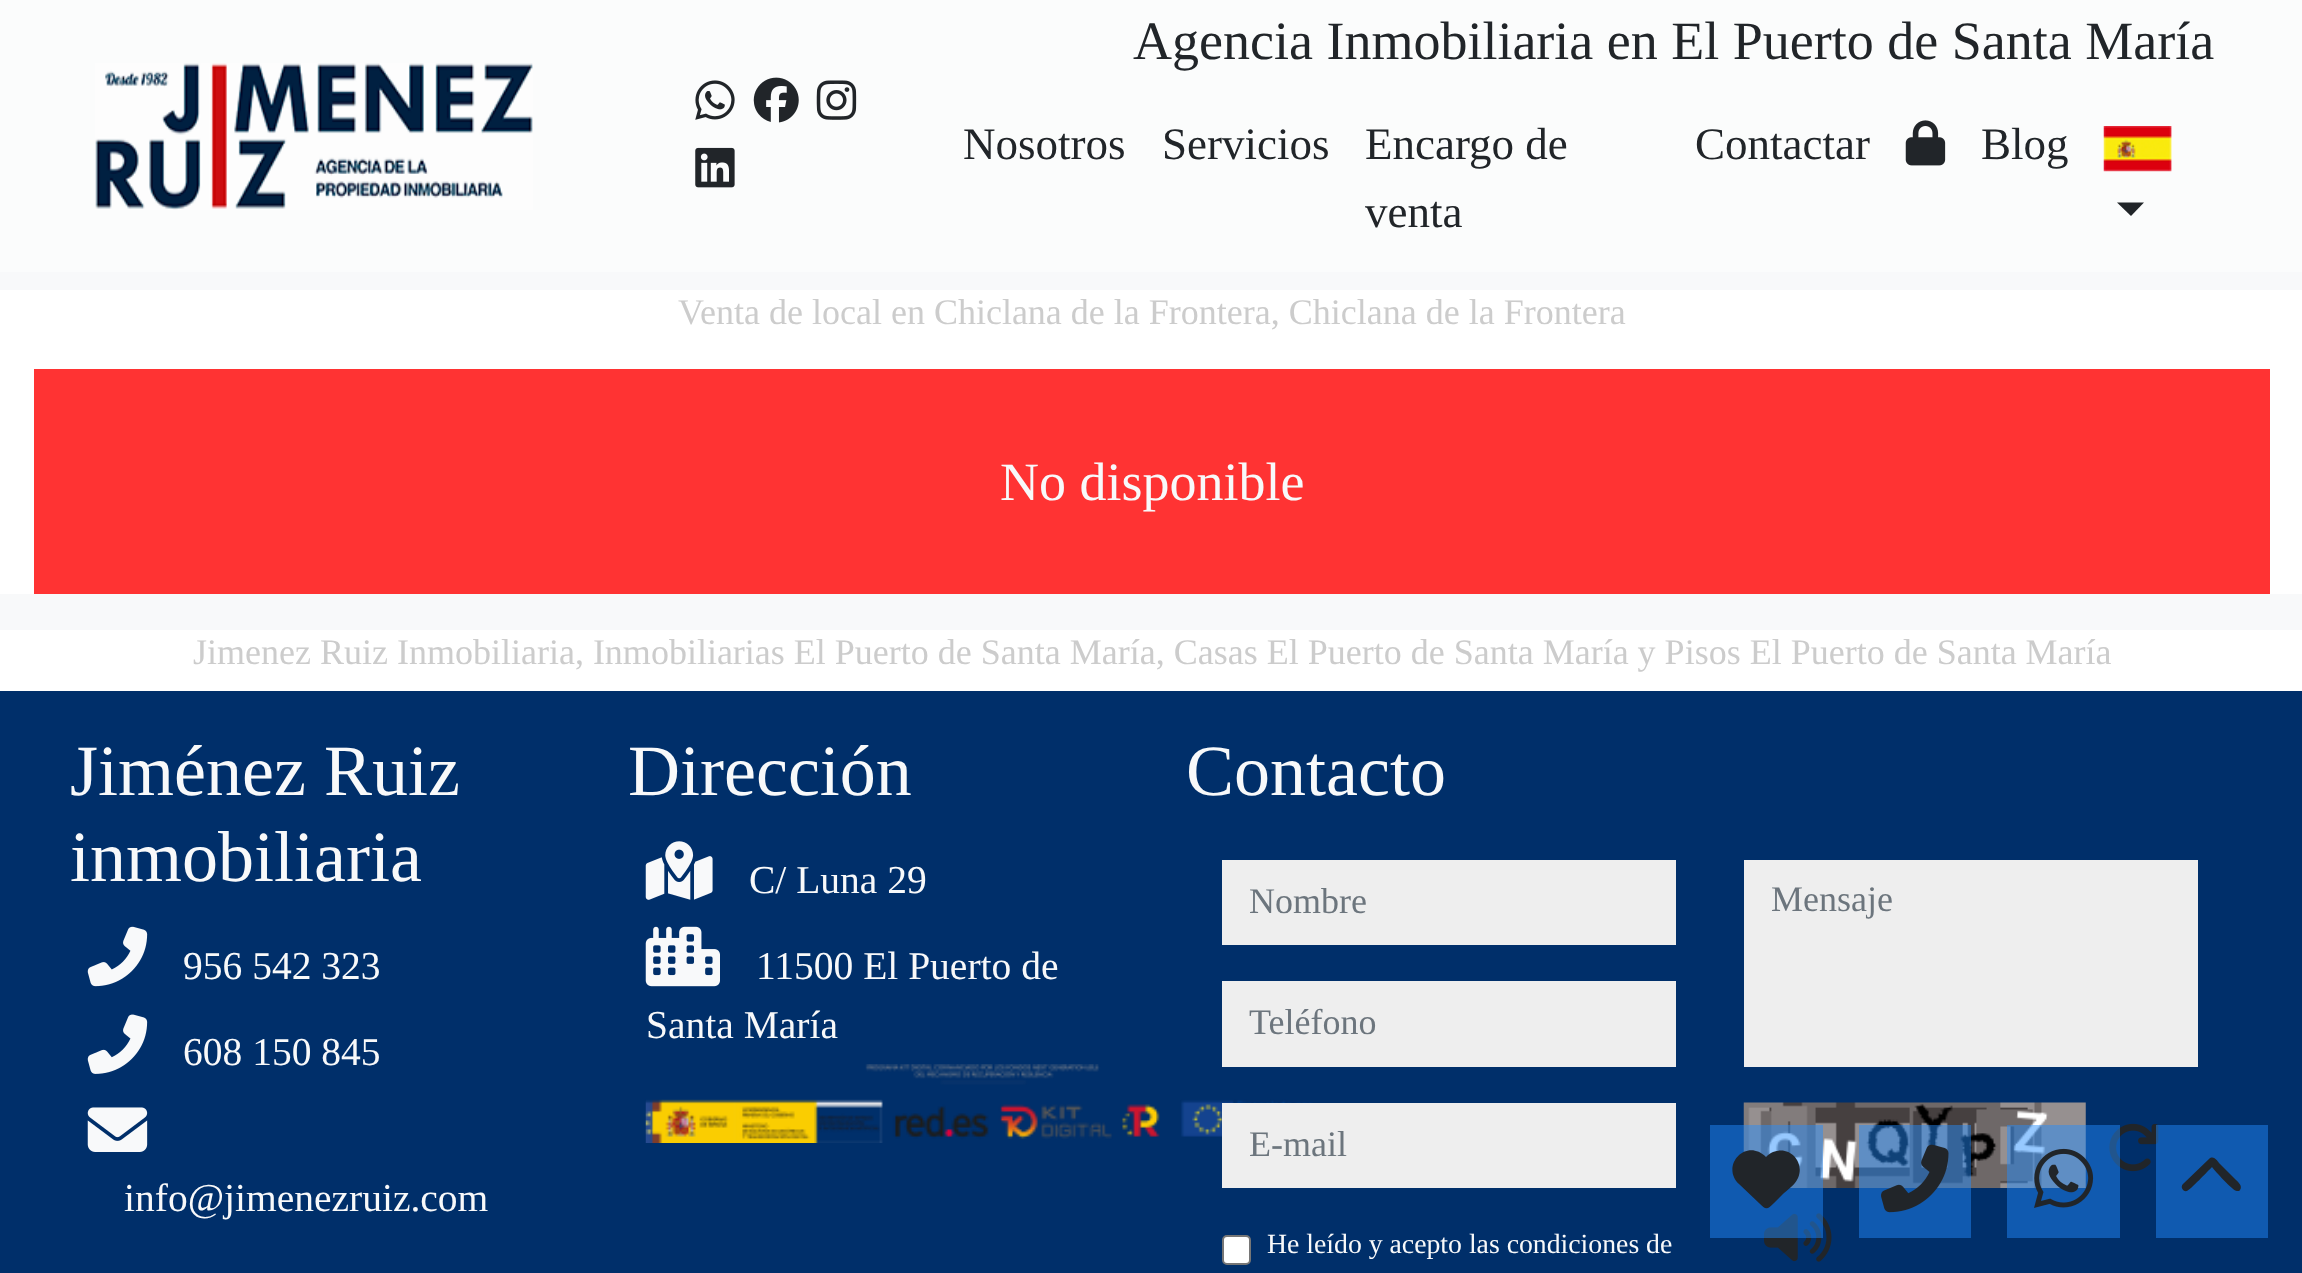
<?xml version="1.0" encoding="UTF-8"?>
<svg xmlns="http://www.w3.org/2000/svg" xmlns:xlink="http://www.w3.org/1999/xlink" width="2302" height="1273">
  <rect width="100%" height="100%" fill="#ffffff" />
  <rect width="2302" height="272" fill="#fbfcfc" />
  <image x="95" y="63" width="438" height="147" xlink:href="image1.png" />
  <image x="695" y="80" width="40" height="40" xlink:href="image2.png" />
  <image x="753" y="77" width="46" height="46" xlink:href="image3.png" />
  <image x="816" y="80" width="41" height="40" xlink:href="image4.png" />
  <image x="695" y="147" width="40" height="41" xlink:href="image5.png" />
  <image x="1905" y="120" width="41" height="46" xlink:href="image6.png" />
  <image x="2103" y="126" width="69" height="46" xlink:href="image7.png" />
  <path d="M 2117 202.5 h 27 l -13 13.5 z" fill="#212529" />
  <rect y="272" width="2302" height="358" fill="#f8f9fa" />
  <rect y="290" width="2302" height="304" fill="#ffffff" />
  <rect x="34" y="369" width="2236" height="225" fill="#ff3333" />
  <rect y="691" width="2302" height="582" fill="#002f6a" />
  <image x="87" y="926" width="61" height="61" xlink:href="image8.png" />
  <image x="87" y="1014" width="61" height="60" xlink:href="image9.png" />
  <image x="87" y="1107" width="61" height="45" xlink:href="image10.png" />
  <image x="645" y="841" width="68" height="59" xlink:href="image11.png" />
  <image x="645" y="926" width="75" height="61" xlink:href="image12.png" />
  <image x="645" y="1064" width="668" height="79" xlink:href="image13.png" />
  <rect x="1222" y="860" width="454" height="85" fill="#eeeeee" />
  <rect x="1222" y="981" width="454" height="86" fill="#eeeeee" />
  <rect x="1222" y="1103" width="454" height="85" fill="#eeeeee" />
  <rect x="1223" y="1236" width="27" height="28" rx="4" fill="#ffffff" stroke="#767676" stroke-width="2" />
  <rect x="1744" y="860" width="454" height="207" fill="#eeeeee" />
  <image x="1743" y="1102" width="343" height="86" xlink:href="image14.png" />
  <image x="2109" y="1123" width="50" height="49" xlink:href="image15.png" />
  <image x="1764" y="1213" width="68" height="49" xlink:href="image16.png" />
  <rect x="1710" y="1125" width="113" height="113" fill="#228dff" fill-opacity="0.47" />
  <path d="M 1739 1184 l 24 23 l -24 -23 l 20 19 c 7 7 8 7 15 0 l 8 -8 c 5 -5 13 -10 16 -17 c 7 -16 -8 -33 -25 -26 c -3 1 -5 3 -7 5 c -20 -20 -46 9 -27 27 z" fill="#212529" />
  <rect x="1859" y="1125" width="112" height="113" fill="#228dff" fill-opacity="0.47" />
  <image x="1881" y="1144" width="68" height="69" xlink:href="image17.png" />
  <rect x="2007" y="1125" width="113" height="113" fill="#228dff" fill-opacity="0.47" />
  <image x="2034" y="1148" width="60" height="60" xlink:href="image18.png" />
  <rect x="2156" y="1125" width="112" height="113" fill="#228dff" fill-opacity="0.47" />
  <path d="M 2209 1159 c 4 -4 8 1 10 4 l 17 17 c 2 2 7 6 4 10 c 0 1 -2 1 -3 1 c -4 0 -22 -20 -25 -24 c -4 4 -22 23 -25 24 c -4 1 -7 -4 -4 -7 z" fill="#212529" />
  <text x="1133" y="59" style="font-family: Liberation Serif; font-size: 54px; fill: #212529">Agencia Inmobiliaria en El Puerto de Santa María</text>
  <text x="963" y="159" style="font-family: Liberation Serif; font-size: 45px; fill: #212529">Nosotros</text>
  <text x="1162" y="159" style="font-family: Liberation Serif; font-size: 45px; fill: #212529">Servicios</text>
  <text x="1365" y="159" style="font-family: Liberation Serif; font-size: 45px; fill: #212529">Encargo de</text>
  <text x="1365" y="227" style="font-family: Liberation Serif; font-size: 45px; fill: #212529">venta</text>
  <text x="1695" y="159" style="font-family: Liberation Serif; font-size: 45px; fill: #212529">Contactar</text>
  <text x="1981" y="159" style="font-family: Liberation Serif; font-size: 45px; fill: #212529">Blog</text>
  <text x="678" y="324" style="font-family: Liberation Serif; font-size: 36px; fill: #cccccc">Venta de local en Chiclana de la Frontera, Chiclana de la Frontera</text>
  <text x="1000" y="500" style="font-family: Liberation Serif; font-size: 54px; fill: #f8f9fa">No disponible</text>
  <text x="193" y="664" style="font-family: Liberation Serif; font-size: 36px; fill: #cccccc">Jimenez Ruiz Inmobiliaria, Inmobiliarias El Puerto de Santa María, Casas El Puerto de Santa María y Pisos El Puerto de Santa María</text>
  <text x="70" y="795" style="font-family: Liberation Serif; font-size: 72px; fill: #f8f9fa">Jiménez Ruiz</text>
  <text x="70" y="881" style="font-family: Liberation Serif; font-size: 72px; fill: #f8f9fa">inmobiliaria</text>
  <text x="183" y="979" style="font-family: Liberation Serif; font-size: 39.5px; fill: #f8f9fa">956 542 323</text>
  <text x="183" y="1065" style="font-family: Liberation Serif; font-size: 39.5px; fill: #f8f9fa">608 150 845</text>
  <text x="124" y="1211" style="font-family: Liberation Serif; font-size: 39.5px; fill: #f8f9fa">info@jimenezruiz.com</text>
  <text x="628" y="795" style="font-family: Liberation Serif; font-size: 72px; fill: #f8f9fa">Dirección</text>
  <text x="749" y="893" style="font-family: Liberation Serif; font-size: 39.5px; fill: #f8f9fa">C/ Luna 29</text>
  <text x="756" y="979" style="font-family: Liberation Serif; font-size: 39.5px; fill: #f8f9fa">11500 El Puerto de</text>
  <text x="646" y="1038" style="font-family: Liberation Serif; font-size: 39.5px; fill: #f8f9fa">Santa María</text>
  <text x="1186" y="795" style="font-family: Liberation Serif; font-size: 72px; fill: #f8f9fa">Contacto</text>
  <text x="1249" y="913" style="font-family: Liberation Serif; font-size: 36px; fill: #6c757d">Nombre</text>
  <text x="1249" y="1034" style="font-family: Liberation Serif; font-size: 36px; fill: #6c757d">Teléfono</text>
  <text x="1249" y="1156" style="font-family: Liberation Serif; font-size: 36px; fill: #6c757d">E-mail</text>
  <text x="1267" y="1253" style="font-family: Liberation Serif; font-size: 27.75px; fill: #f8f9fa">He leído y acepto las condiciones de</text>
  <text x="1771" y="911" style="font-family: Liberation Serif; font-size: 36px; fill: #6c757d">Mensaje</text>
</svg>
